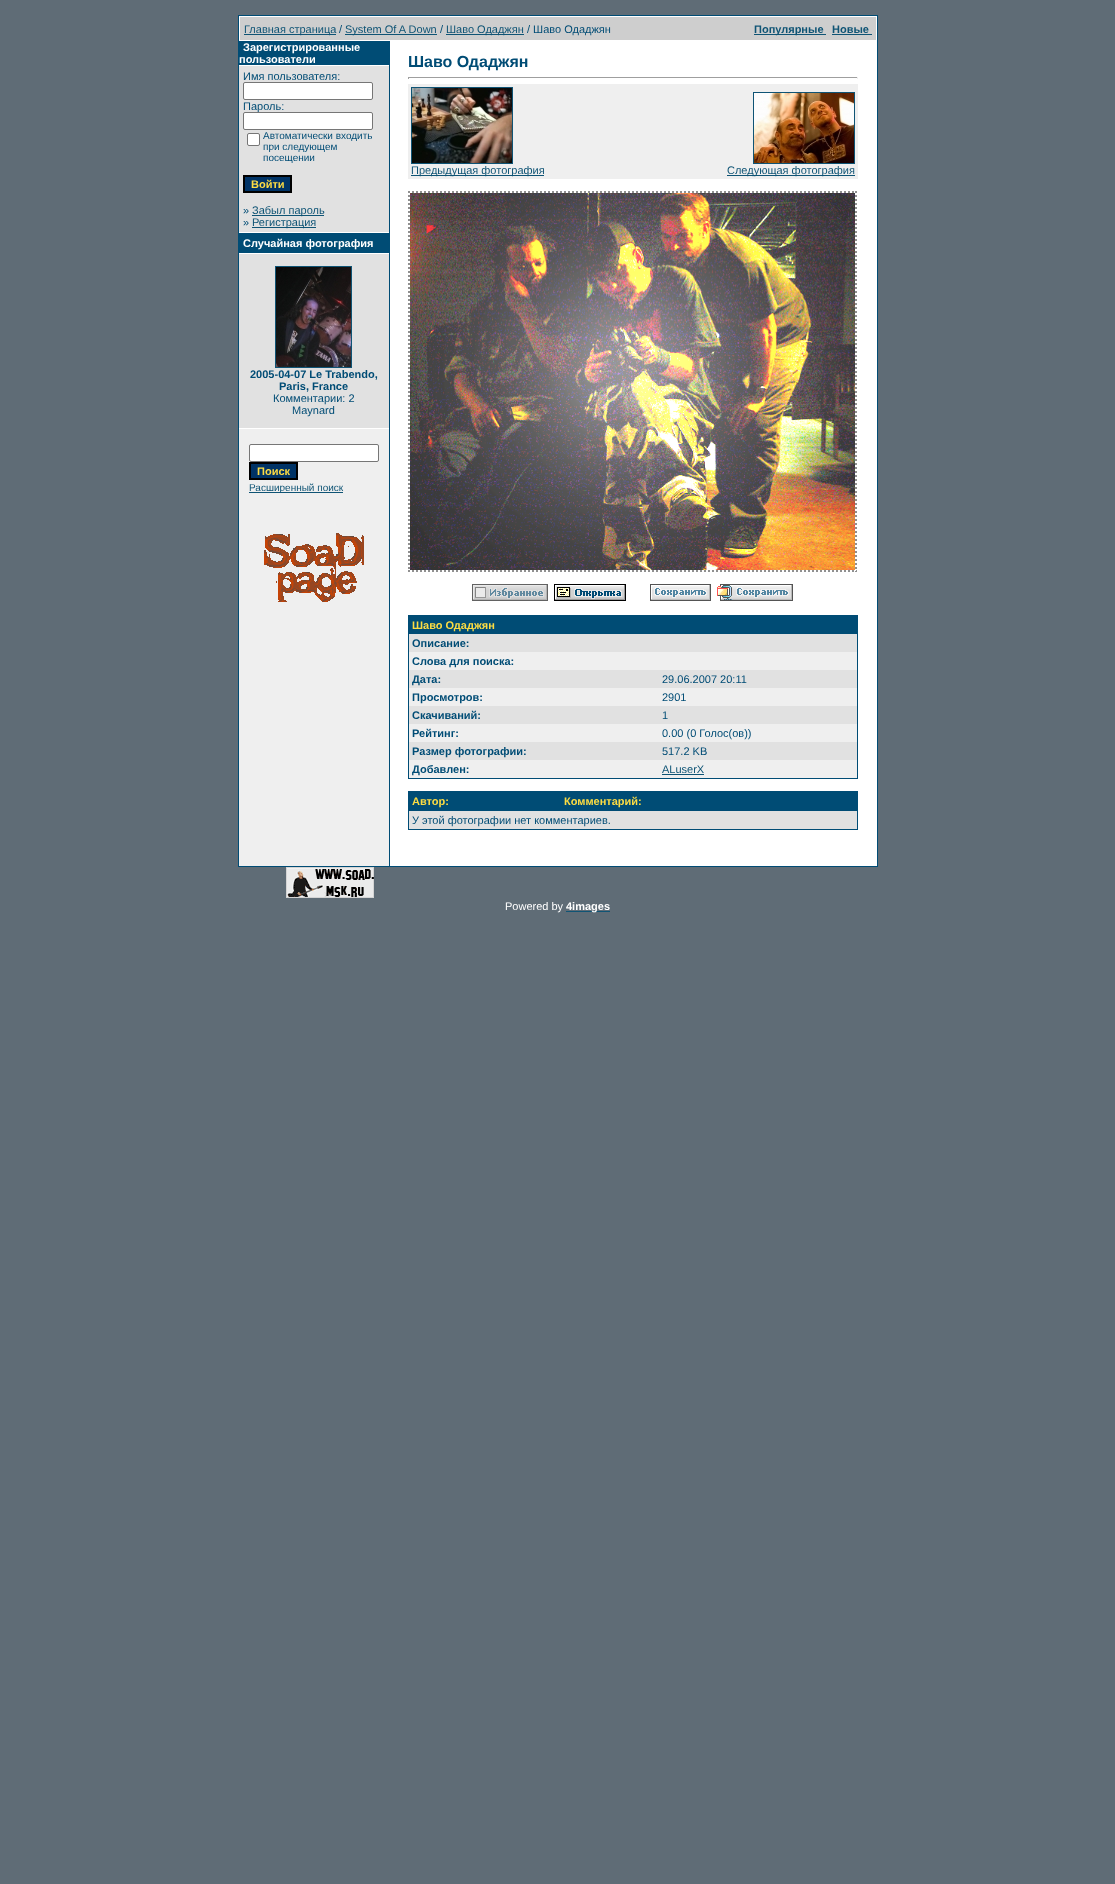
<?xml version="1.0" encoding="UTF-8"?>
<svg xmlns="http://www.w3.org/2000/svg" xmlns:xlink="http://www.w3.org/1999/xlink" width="1115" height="1884">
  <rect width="100%" height="100%" fill="#5f6c76" />
  <rect x="238" y="15" width="640" height="852" fill="#004c75" />
  <rect x="239" y="16" width="638" height="850" fill="#ffffff" />
  <rect x="240" y="17" width="636" height="23" fill="#cecece" />
  <rect x="244" y="34" width="92" height="1" fill="#0f5475" />
  <rect x="345" y="34" width="92" height="1" fill="#0f5475" />
  <rect x="446" y="34" width="78" height="1" fill="#0f5475" />
  <rect x="754" y="34" width="72" height="1" fill="#0f5475" />
  <rect x="832" y="34" width="40" height="1" fill="#0f5475" />
  <rect x="239" y="429" width="150" height="437" fill="#efefef" />
  <rect x="239" y="41" width="150" height="24" fill="#004c75" />
  <rect x="239" y="66" width="150" height="166" fill="#e1e1e1" />
  <rect x="243.5" y="82.5" width="129" height="17" rx="1.5" fill="#ffffff" stroke="#767676" />
  <rect x="247.5" y="133.5" width="12" height="12" rx="1.5" fill="#ffffff" stroke="#767676" />
  <rect x="244" y="176" width="47" height="16" fill="#003366" stroke="#000000" stroke-width="2" />
  <rect x="252" y="215" width="72" height="1" fill="#0f5475" />
  <rect x="252" y="227" width="64" height="1" fill="#0f5475" />
  <rect x="239" y="233" width="150" height="20" fill="#004c75" />
  <rect x="239" y="254" width="150" height="174" fill="#e1e1e1" />
  <rect x="275.5" y="266.5" width="76" height="101" fill="none" stroke="#0f5475" />
  <image x="276" y="267" width="75" height="100" xlink:href="image1.png" />
  <rect x="249.5" y="444.5" width="129" height="17" rx="1.5" fill="#ffffff" stroke="#767676" />
  <rect x="250" y="463" width="47" height="16" fill="#003366" stroke="#000000" stroke-width="2" />
  <rect x="249" y="492" width="94" height="1" fill="#0f5475" />
  <image x="264" y="533" width="100" height="69" xlink:href="image2.png" />
  <rect x="389" y="41" width="1" height="825" fill="#004c75" />
  <rect x="408" y="77" width="450" height="1" fill="#9f9f9f" />
  <rect x="857" y="77" width="1" height="2" fill="#eeeeee" />
  <rect x="408" y="77" width="1" height="2" fill="#9f9f9f" />
  <rect x="408" y="84" width="450" height="95" fill="#efefef" />
  <rect x="411.5" y="87.5" width="101" height="76" fill="none" stroke="#0f5475" />
  <image x="412" y="88" width="100" height="75" xlink:href="image3.png" />
  <rect x="411" y="175" width="133" height="1" fill="#0f5475" />
  <rect x="753.5" y="92.5" width="101" height="71" fill="none" stroke="#0f5475" />
  <image x="754" y="93" width="100" height="70" xlink:href="image4.png" />
  <rect x="727" y="175" width="128" height="1" fill="#0f5475" />
  <path d="M 408 192 h 449" fill="none" stroke="#909090" stroke-width="2" stroke-dasharray="2 2" />
  <path d="M 856 191 v 381" fill="none" stroke="#909090" stroke-width="2" stroke-dasharray="2 2" />
  <path d="M 408 571 h 449" fill="none" stroke="#909090" stroke-width="2" stroke-dasharray="2 2" />
  <path d="M 409 191 v 381" fill="none" stroke="#909090" stroke-width="2" stroke-dasharray="2 2" />
  <image x="410" y="193" width="445" height="377" xlink:href="image5.png" />
  <image x="472" y="584" width="76" height="17" xlink:href="image6.png" />
  <image x="554" y="584" width="72" height="17" xlink:href="image7.png" />
  <image x="650" y="584" width="61" height="17" xlink:href="image8.png" />
  <image x="717" y="584" width="76" height="17" xlink:href="image9.png" />
  <rect x="408" y="615" width="450" height="164" fill="#004c75" />
  <rect x="409" y="634" width="448" height="18" fill="#e1e1e1" />
  <rect x="409" y="652" width="448" height="18" fill="#efefef" />
  <rect x="409" y="670" width="448" height="18" fill="#e1e1e1" />
  <rect x="409" y="688" width="448" height="18" fill="#efefef" />
  <rect x="409" y="706" width="448" height="18" fill="#e1e1e1" />
  <rect x="409" y="724" width="448" height="18" fill="#efefef" />
  <rect x="409" y="742" width="448" height="18" fill="#e1e1e1" />
  <rect x="409" y="760" width="448" height="18" fill="#efefef" />
  <rect x="662" y="774" width="42" height="1" fill="#0f5475" />
  <rect x="408" y="791" width="450" height="39" fill="#004c75" />
  <rect x="409" y="811" width="448" height="18" fill="#e1e1e1" />
  <image x="286" y="867" width="88" height="31" xlink:href="image10.png" />
  <rect x="566" y="911" width="44" height="1" fill="#0f5475" />
  <text x="244" y="33" style="font-family: Liberation Sans; font-size: 11px; fill: #0f5475">Главная страница</text>
  <text x="339" y="33" style="font-family: Liberation Sans; font-size: 11px; fill: #004c75">/</text>
  <text x="345" y="33" style="font-family: Liberation Sans; font-size: 11px; fill: #0f5475">System Of A Down</text>
  <text x="440" y="33" style="font-family: Liberation Sans; font-size: 11px; fill: #004c75">/</text>
  <text x="446" y="33" style="font-family: Liberation Sans; font-size: 11px; fill: #0f5475">Шаво Одаджян</text>
  <text x="527" y="33" style="font-family: Liberation Sans; font-size: 11px; fill: #004c75">/ Шаво Одаджян</text>
  <text x="754" y="33" style="font-family: Liberation Sans; font-size: 11px; font-weight: bold; fill: #0f5475">Популярные</text>
  <text x="832" y="33" style="font-family: Liberation Sans; font-size: 11px; font-weight: bold; fill: #0f5475">Новые</text>
  <text x="243" y="51" style="font-family: Liberation Sans; font-size: 11px; font-weight: bold; fill: #ffffff">Зарегистрированные</text>
  <text x="239" y="63" style="font-family: Liberation Sans; font-size: 11px; font-weight: bold; fill: #ffffff">пользователи</text>
  <text x="243" y="80" style="font-family: Liberation Sans; font-size: 11px; fill: #004c75">Имя пользователя:</text>
  <text x="243" y="110" style="font-family: Liberation Sans; font-size: 11px; fill: #004c75">Пароль:</text>
  <rect x="243.5" y="112.5" width="129" height="17" rx="1.5" fill="#ffffff" stroke="#767676" />
  <text x="263" y="139" style="font-family: Liberation Sans; font-size: 10px; fill: #004c75">Автоматически входить</text>
  <text x="263" y="150" style="font-family: Liberation Sans; font-size: 10px; fill: #004c75">при следующем</text>
  <text x="263" y="161" style="font-family: Liberation Sans; font-size: 10px; fill: #004c75">посещении</text>
  <text x="251" y="188" style="font-family: Liberation Sans; font-size: 11px; font-weight: bold; fill: #fcdc43">Войти</text>
  <text x="243" y="214" style="font-family: Liberation Sans; font-size: 11px; fill: #004c75">»</text>
  <text x="252" y="214" style="font-family: Liberation Sans; font-size: 11px; fill: #0f5475">Забыл пароль</text>
  <text x="243" y="226" style="font-family: Liberation Sans; font-size: 11px; fill: #004c75">»</text>
  <text x="252" y="226" style="font-family: Liberation Sans; font-size: 11px; fill: #0f5475">Регистрация</text>
  <text x="243" y="247" style="font-family: Liberation Sans; font-size: 11px; font-weight: bold; fill: #ffffff">Случайная фотография</text>
  <text x="250" y="378" style="font-family: Liberation Sans; font-size: 11px; font-weight: bold; fill: #004c75">2005-04-07 Le Trabendo,</text>
  <text x="279" y="390" style="font-family: Liberation Sans; font-size: 11px; font-weight: bold; fill: #004c75">Paris, France</text>
  <text x="273" y="402" style="font-family: Liberation Sans; font-size: 11px; fill: #004c75">Комментарии: 2</text>
  <text x="292" y="414" style="font-family: Liberation Sans; font-size: 11px; fill: #004c75">Maynard</text>
  <text x="257" y="475" style="font-family: Liberation Sans; font-size: 11px; font-weight: bold; fill: #fcdc43">Поиск</text>
  <text x="249" y="491" style="font-family: Liberation Sans; font-size: 10px; fill: #0f5475">Расширенный поиск</text>
  <text x="408" y="67" style="font-family: Liberation Sans; font-size: 16px; font-weight: bold; fill: #004c75">Шаво Одаджян</text>
  <text x="411" y="174" style="font-family: Liberation Sans; font-size: 11px; fill: #0f5475">Предыдущая фотография</text>
  <text x="727" y="174" style="font-family: Liberation Sans; font-size: 11px; fill: #0f5475">Следующая фотография</text>
  <text x="412" y="629" style="font-family: Liberation Sans; font-size: 11px; font-weight: bold; fill: #fcdc43">Шаво Одаджян</text>
  <text x="412" y="647" style="font-family: Liberation Sans; font-size: 11px; font-weight: bold; fill: #004c75">Описание:</text>
  <text x="412" y="665" style="font-family: Liberation Sans; font-size: 11px; font-weight: bold; fill: #004c75">Слова для поиска:</text>
  <text x="412" y="683" style="font-family: Liberation Sans; font-size: 11px; font-weight: bold; fill: #004c75">Дата:</text>
  <text x="662" y="683" style="font-family: Liberation Sans; font-size: 11px; fill: #004c75">29.06.2007 20:11</text>
  <text x="412" y="701" style="font-family: Liberation Sans; font-size: 11px; font-weight: bold; fill: #004c75">Просмотров:</text>
  <text x="662" y="701" style="font-family: Liberation Sans; font-size: 11px; fill: #004c75">2901</text>
  <text x="412" y="719" style="font-family: Liberation Sans; font-size: 11px; font-weight: bold; fill: #004c75">Скачиваний:</text>
  <text x="662" y="719" style="font-family: Liberation Sans; font-size: 11px; fill: #004c75">1</text>
  <text x="412" y="737" style="font-family: Liberation Sans; font-size: 11px; font-weight: bold; fill: #004c75">Рейтинг:</text>
  <text x="662" y="737" style="font-family: Liberation Sans; font-size: 11px; fill: #004c75">0.00 (0 Голос(ов))</text>
  <text x="412" y="755" style="font-family: Liberation Sans; font-size: 11px; font-weight: bold; fill: #004c75">Размер фотографии:</text>
  <text x="662" y="755" style="font-family: Liberation Sans; font-size: 11px; fill: #004c75">517.2 KB</text>
  <text x="412" y="773" style="font-family: Liberation Sans; font-size: 11px; font-weight: bold; fill: #004c75">Добавлен:</text>
  <text x="662" y="773" style="font-family: Liberation Sans; font-size: 11px; fill: #0f5475">ALuserX</text>
  <text x="412" y="805" style="font-family: Liberation Sans; font-size: 11px; font-weight: bold; fill: #fcdc43">Автор:</text>
  <text x="564" y="805" style="font-family: Liberation Sans; font-size: 11px; font-weight: bold; fill: #fcdc43">Комментарий:</text>
  <text x="412" y="824" style="font-family: Liberation Sans; font-size: 11px; fill: #004c75">У этой фотографии нет комментариев.</text>
  <text x="505" y="910" style="font-family: Liberation Sans; font-size: 11px; fill: #ffffff">Powered by</text>
  <text x="566" y="910" style="font-family: Liberation Sans; font-size: 11px; font-weight: bold; fill: #ffffff">4images</text>
</svg>
